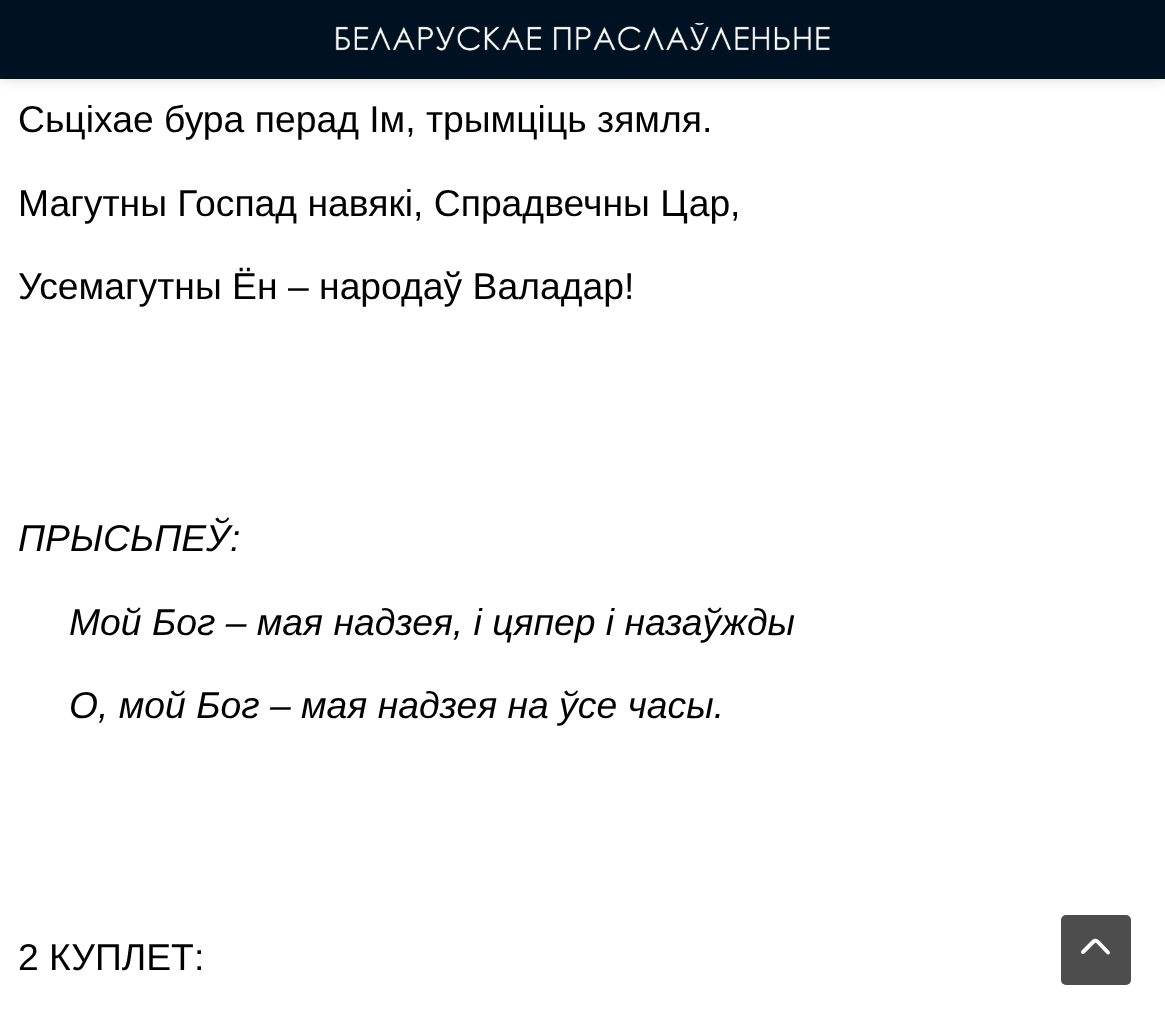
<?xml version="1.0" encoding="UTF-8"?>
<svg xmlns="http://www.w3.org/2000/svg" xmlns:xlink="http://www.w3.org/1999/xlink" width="1165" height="1020">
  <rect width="100%" height="100%" fill="#ffffff" />
  <rect width="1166" height="79" fill="#000000" fill-opacity="0.15" filter="blur(7px)" />
  <rect width="1165" height="79" fill="#001221" />
  <image x="335" y="23" width="495" height="28" xlink:href="image1.png" />
  <rect x="1061" y="915" width="70" height="70" rx="5" fill="#4d4d4d" />
  <path d="M 1108 952.5 l -10.5 -11 c -1.5 -1 -3 -1 -4 0 l -10.5 10.5" fill="none" stroke="#ffffff" stroke-width="3.9" stroke-linecap="round" stroke-linejoin="bevel" />
  <text x="18" y="132" style="font-family: Liberation Sans; font-size: 37.3px; fill: #000000">Сьціхае бура перад Ім, трымціць зямля.</text>
  <text x="18" y="216" style="font-family: Liberation Sans; font-size: 37.3px; fill: #000000">Магутны Госпад навякі, Спрадвечны Цар,</text>
  <text x="18" y="299" style="font-family: Liberation Sans; font-size: 37.3px; fill: #000000">Усемагутны Ён – народаў Валадар!</text>
  <text x="18" y="551" style="font-family: Liberation Sans; font-size: 37.3px; font-style: italic; fill: #000000">ПРЫСЬПЕЎ:</text>
  <text x="69" y="635" style="font-family: Liberation Sans; font-size: 37.3px; font-style: italic; fill: #000000">Мой Бог – мая надзея, і цяпер і назаўжды</text>
  <text x="69" y="718" style="font-family: Liberation Sans; font-size: 37.3px; font-style: italic; fill: #000000">О, мой Бог – мая надзея на ўсе часы.</text>
  <text x="18" y="970" style="font-family: Liberation Sans; font-size: 37.3px; fill: #000000">2 КУПЛЕТ:</text>
</svg>
